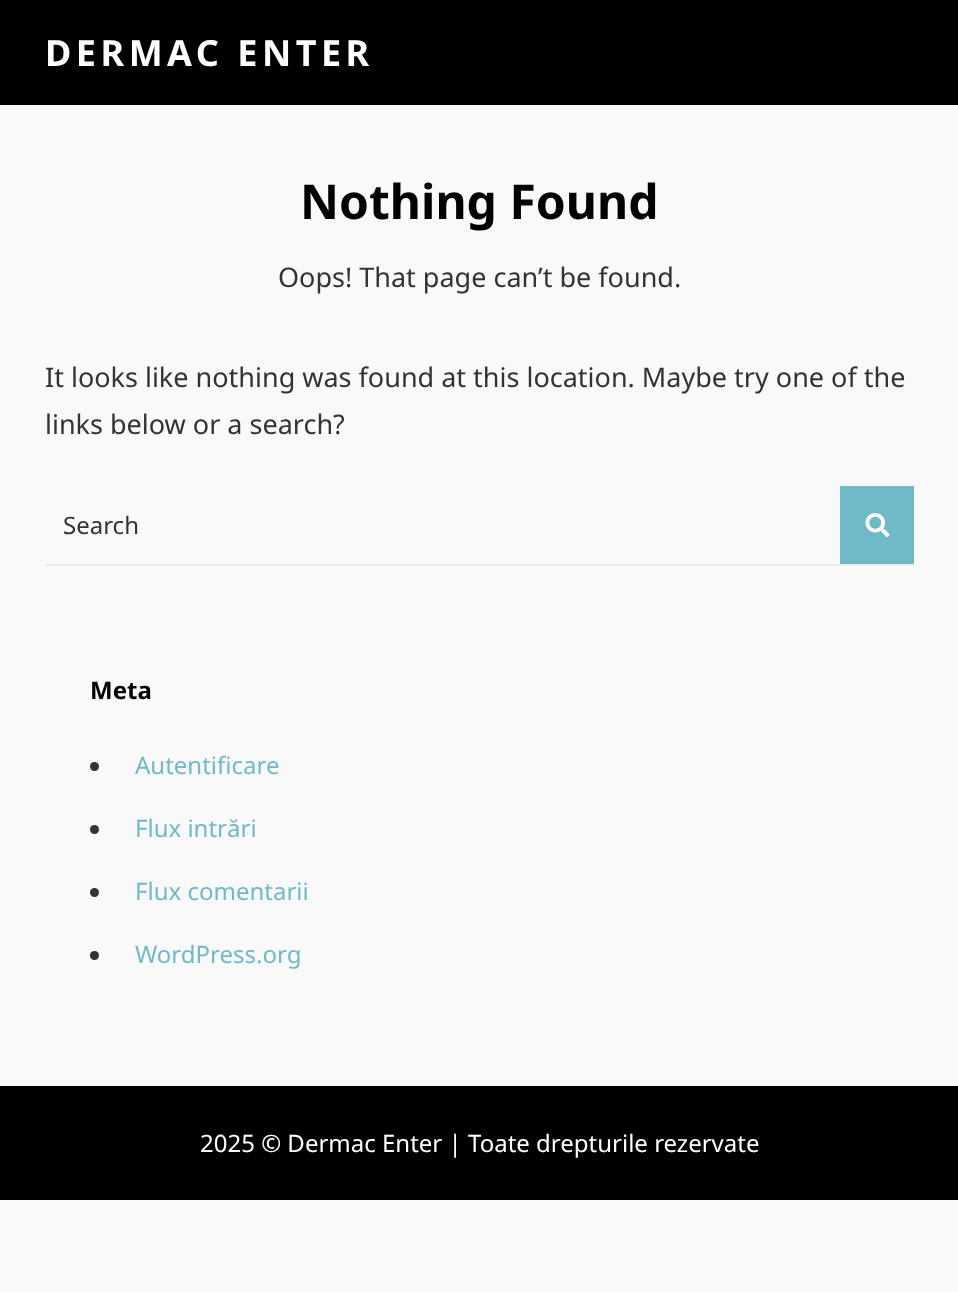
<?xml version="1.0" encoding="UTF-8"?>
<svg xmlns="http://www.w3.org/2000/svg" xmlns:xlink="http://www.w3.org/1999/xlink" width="958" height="1292">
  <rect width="100%" height="100%" fill="#f9f9f9" />
  <rect width="958" height="105" fill="#000000" />
  <path d="M 45 564 v 2 h 869 v -78 v 76 z" fill="#ededed" />
  <rect x="840" y="486" width="74" height="78" fill="#6fb9c8" />
  <image x="865" y="513" width="25" height="24" xlink:href="image1.png" />
  <circle cx="94.5" cy="766.5" r="4.5" fill="#333333" />
  <circle cx="94.5" cy="829.5" r="4.5" fill="#333333" />
  <circle cx="94.5" cy="892.5" r="4.5" fill="#333333" />
  <circle cx="94.5" cy="955.5" r="4.5" fill="#333333" />
  <rect y="1086" width="958" height="114" fill="#000000" />
  <text x="45" y="66" style="font-family: Noto Sans; font-size: 36px; font-weight: bold; letter-spacing: 4.5px; fill: #ffffff">DERMAC ENTER</text>
  <text x="300" y="219" style="font-family: Noto Sans; font-size: 48px; font-weight: bold; fill: #000000">Nothing Found</text>
  <text x="278" y="287" style="font-family: Noto Sans; font-size: 27px; fill: #333333">Oops! That page can’t be found.</text>
  <text x="45" y="387" style="font-family: Noto Sans; font-size: 27px; fill: #333333">It looks like nothing was found at this location. Maybe try one of the</text>
  <text x="45" y="434" style="font-family: Noto Sans; font-size: 27px; fill: #333333">links below or a search?</text>
  <text x="63" y="534" style="font-family: Noto Sans; font-size: 24px; fill: #333333">Search</text>
  <text x="90" y="699" style="font-family: Noto Sans; font-size: 24px; font-weight: bold; fill: #000000">Meta</text>
  <text x="135" y="774" style="font-family: Noto Sans; font-size: 24px; fill: #6fb9c8">Autentificare</text>
  <text x="135" y="837" style="font-family: Noto Sans; font-size: 24px; fill: #6fb9c8">Flux intrări</text>
  <text x="135" y="900" style="font-family: Noto Sans; font-size: 24px; fill: #6fb9c8">Flux comentarii</text>
  <text x="135" y="963" style="font-family: Noto Sans; font-size: 24px; fill: #6fb9c8">WordPress.org</text>
  <text x="200" y="1152" style="font-family: Noto Sans; font-size: 24px; fill: #ffffff">2025 © Dermac Enter | Toate drepturile rezervate</text>
</svg>
